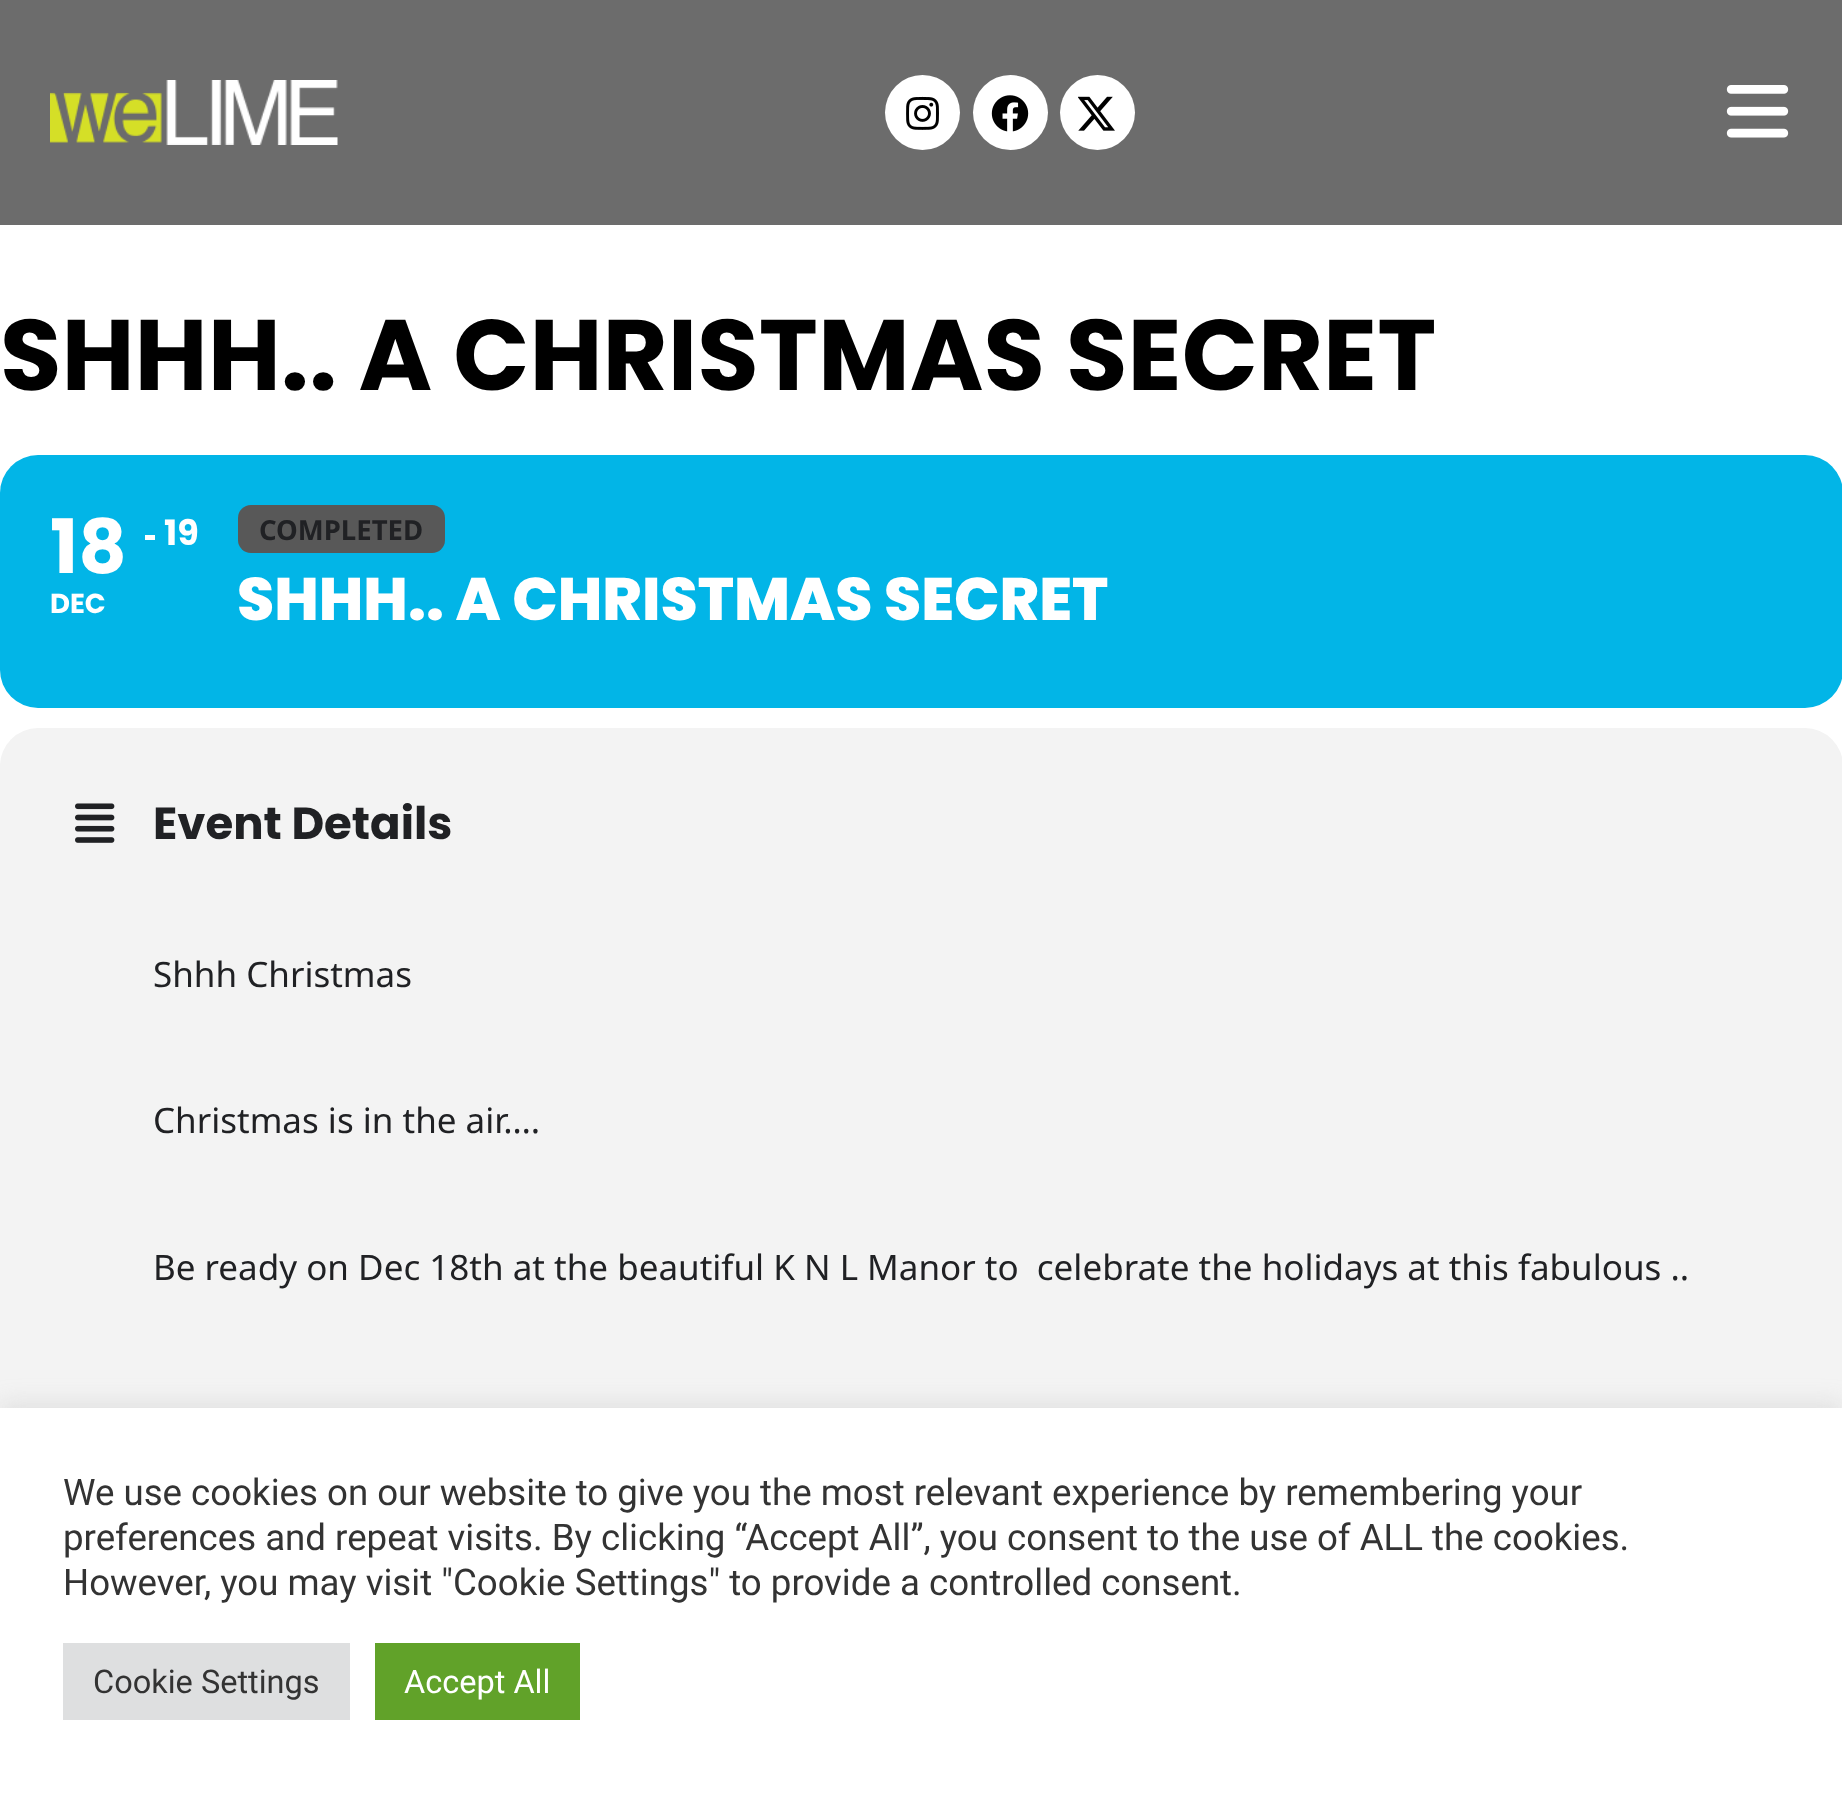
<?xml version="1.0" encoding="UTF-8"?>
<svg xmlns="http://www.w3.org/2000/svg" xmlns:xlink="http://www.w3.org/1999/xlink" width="1842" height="1794">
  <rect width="100%" height="100%" fill="#ffffff" />
  <rect width="1842" height="225" fill="#6c6c6c" />
  <image x="50" y="80" width="288" height="65" xlink:href="image1.png" />
  <circle cx="922.5" cy="112.5" r="37.5" fill="#ffffff" />
  <image x="906" y="96" width="33" height="34" xlink:href="image2.png" />
  <circle cx="1010.5" cy="112.5" r="37.5" fill="#ffffff" />
  <image x="991" y="95" width="38" height="37" xlink:href="image3.png" />
  <circle cx="1097.5" cy="112.5" r="37.5" fill="#ffffff" />
  <image x="1078" y="96" width="37" height="35" xlink:href="image4.png" />
  <image x="1726" y="85" width="63" height="53" xlink:href="image5.png" />
  <rect y="455" width="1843" height="253" rx="38" fill="#02b5e7" />
  <rect x="145" y="535" width="10" height="5" fill="#ffffff" />
  <rect x="238" y="505" width="207" height="48" rx="13" fill="#585858" />
  <rect y="728" width="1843" height="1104" rx="38" fill="#f3f3f3" />
  <image x="75" y="803" width="40" height="40" xlink:href="image6.png" />
  <rect y="1405" width="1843" height="388" fill="#acabab" fill-opacity="0.3" filter="blur(12.5px)" />
  <rect y="1408" width="1842" height="386" fill="#ffffff" />
  <rect x="63" y="1643" width="287" height="77" fill="#dedfe0" />
  <rect x="375" y="1643" width="205" height="77" fill="#61a229" />
  <text x="0" y="390" style="font-family: Poppins; font-size: 100px; font-weight: bold; fill: #000000">SHHH.. A CHRISTMAS SECRET</text>
  <text x="50" y="573" style="font-family: Poppins; font-size: 75px; font-weight: bold; fill: #ffffff">18</text>
  <text x="50" y="613" style="font-family: Poppins; font-size: 27.5px; font-weight: bold; fill: #ffffff">DEC</text>
  <text x="164" y="545" style="font-family: Poppins; font-size: 35px; font-weight: bold; fill: #ffffff">19</text>
  <text x="259" y="540" style="font-family: Noto Sans; font-size: 27.5px; font-weight: bold; fill: #202124">COMPLETED</text>
  <text x="237" y="620" style="font-family: Poppins; font-size: 60px; font-weight: 800; fill: #ffffff">SHHH.. A CHRISTMAS SECRET</text>
  <text x="153" y="839" style="font-family: Poppins; font-size: 45px; font-weight: bold; fill: #202124">Event Details</text>
  <text x="153" y="987" style="font-family: Noto Sans; font-size: 35px; fill: #202124">Shhh Christmas</text>
  <text x="153" y="1133" style="font-family: Noto Sans; font-size: 35px; fill: #202124">Christmas is in the air….</text>
  <text x="153" y="1280" style="font-family: Noto Sans; font-size: 35px; fill: #202124" xml:space="preserve">Be ready on Dec 18th at the beautiful K N L Manor to  celebrate the holidays at this fabulous ..</text>
  <text x="63" y="1505" style="font-family: Roboto; font-size: 36.65px; fill: #333333">We use cookies on our website to give you the most relevant experience by remembering your</text>
  <text x="63" y="1550" style="font-family: Roboto; font-size: 36.65px; fill: #333333">preferences and repeat visits. By clicking “Accept All”, you consent to the use of ALL the cookies.</text>
  <text x="63" y="1595" style="font-family: Roboto; font-size: 36.65px; fill: #333333">However, you may visit "Cookie Settings" to provide a controlled consent.</text>
  <text x="93" y="1693" style="font-family: Roboto; font-size: 32.5px; fill: #333333">Cookie Settings</text>
  <text x="404" y="1693" style="font-family: Roboto; font-size: 32.5px; fill: #ffffff">Accept All</text>
</svg>
